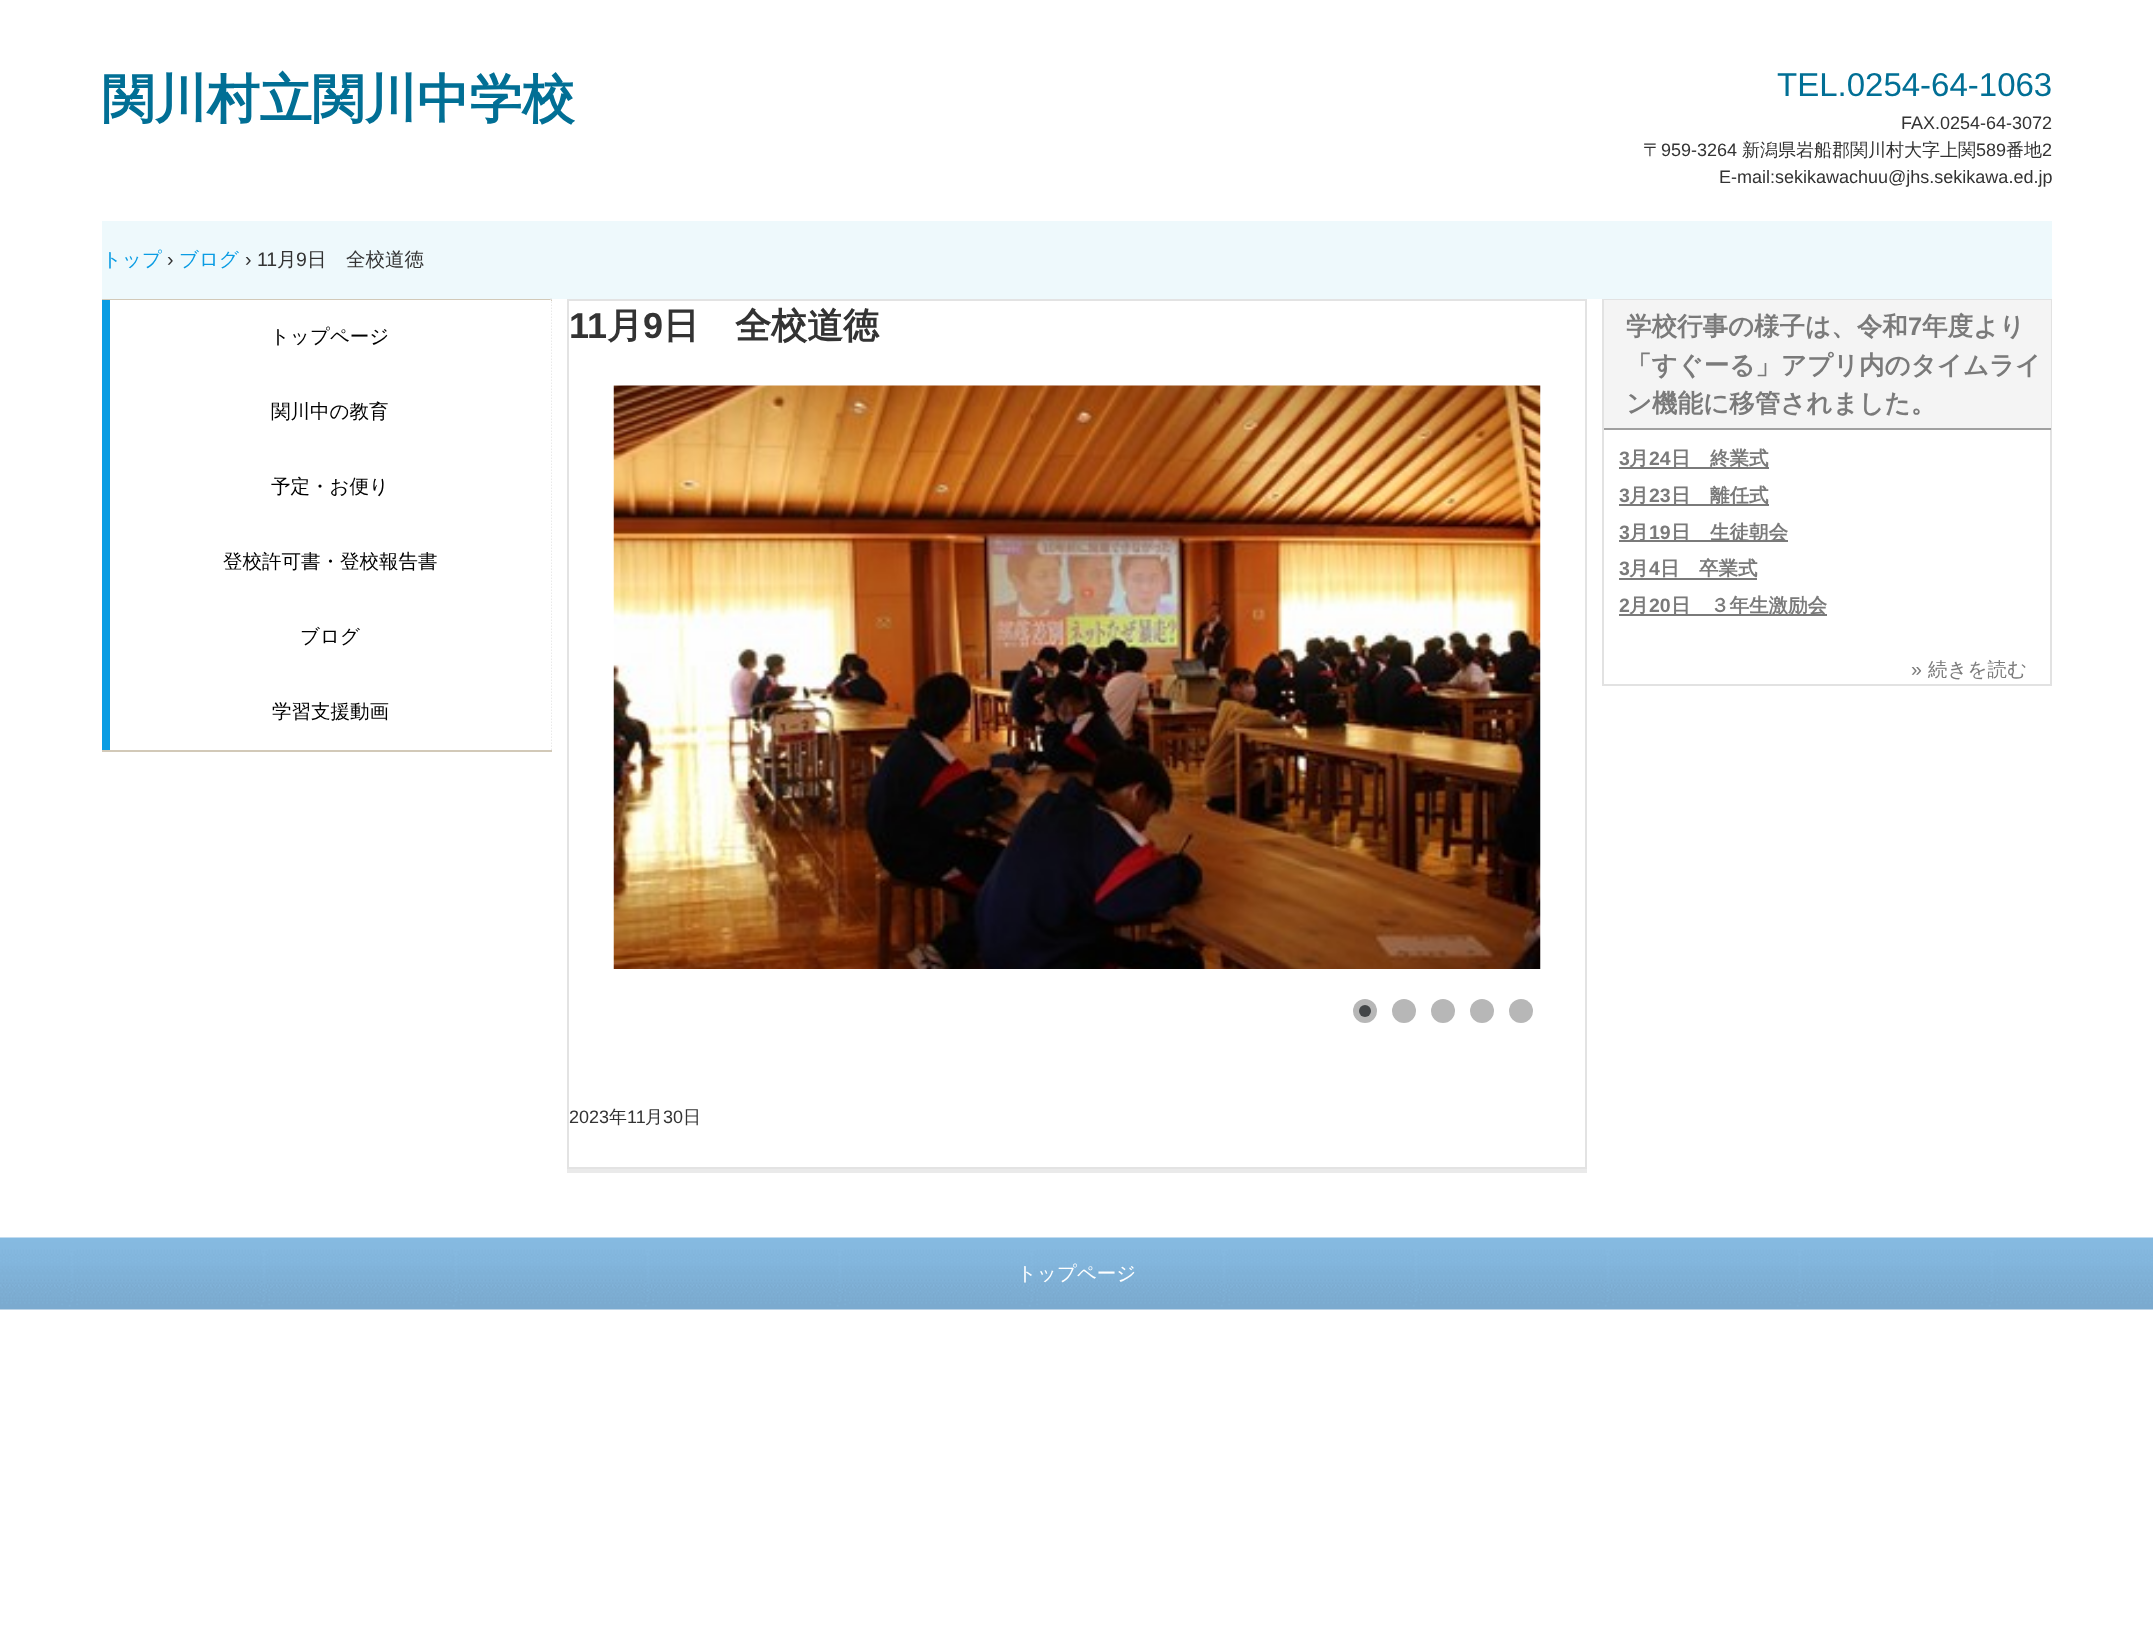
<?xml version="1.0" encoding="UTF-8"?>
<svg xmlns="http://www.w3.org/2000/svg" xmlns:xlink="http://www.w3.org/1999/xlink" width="2153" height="1629">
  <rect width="100%" height="100%" fill="#ffffff" />
  <rect x="102" y="221" width="1950" height="78" fill="#eef9fc" />
  <rect x="102" y="299" width="450" height="2" fill="#d2c9b8" />
  <path d="M 551 298.5 v 453" fill="none" stroke="#e2e2e2" stroke-width="1.5" stroke-dasharray="1.5 1.5" />
  <rect x="102" y="750" width="450" height="2" fill="#d2c9b8" />
  <rect x="102" y="300" width="8" height="450" fill="#099ce3" />
  <rect x="110" y="300" width="441" height="75" fill="#ffffff" />
  <rect x="550" y="376" width="1" height="74" fill="#ffffff" />
  <rect x="550" y="451" width="1" height="74" fill="#ffffff" />
  <rect x="550" y="526" width="1" height="74" fill="#ffffff" />
  <rect x="550" y="601" width="1" height="74" fill="#ffffff" />
  <rect x="550" y="676" width="1" height="74" fill="#ffffff" />
  <rect x="567" y="1169" width="1020" height="4" fill="#eaeaea" />
  <rect x="568" y="300" width="1018" height="868" fill="none" stroke="#e3e3e3" stroke-width="2" />
  <image x="613" y="385" width="928" height="584" xlink:href="image1.png" />
  <circle cx="1365" cy="1011" r="12" fill="#b7b7b7" />
  <circle cx="1365" cy="1011" r="6" fill="#434648" />
  <circle cx="1404" cy="1011" r="12" fill="#b7b7b7" />
  <circle cx="1443" cy="1011" r="12" fill="#b7b7b7" />
  <circle cx="1482" cy="1011" r="12" fill="#b7b7b7" />
  <circle cx="1521" cy="1011" r="12" fill="#b7b7b7" />
  <rect x="1603" y="300" width="448" height="385" fill="none" stroke="#e2e2e2" stroke-width="2" />
  <rect x="1604" y="300" width="447" height="128" fill="#f4f4f4" />
  <rect x="1604" y="428" width="447" height="2" fill="#a0a0a0" />
  <rect x="1619" y="467" width="150" height="2" fill="#7a7a7a" />
  <rect x="1619" y="504" width="150" height="2" fill="#7a7a7a" />
  <rect x="1619" y="540" width="169" height="2" fill="#7a7a7a" />
  <rect x="1619" y="578" width="138" height="2" fill="#7a7a7a" />
  <rect x="1619" y="614" width="208" height="2" fill="#7a7a7a" />
  <image x="0" y="1237" width="2153" height="73" xlink:href="image2.png" />
  <text x="102" y="117" style="font-family: WenQuanYi Zen Hei; font-size: 52.5px; font-weight: bold; fill: #016f95">関川村立関川中学校</text>
  <text x="1777" y="96" style="font-family: Liberation Sans; font-size: 33px; fill: #016f95">TEL.0254-64-1063</text>
  <text x="1901" y="129" style="font-family: Liberation Sans; font-size: 18px; fill: #333333">FAX.0254-64-3072</text>
  <text x="1643" y="156" style="font-family: WenQuanYi Zen Hei; font-size: 18px; font-weight: 500; fill: #333333">〒</text>
  <text x="1661" y="156" style="font-family: Liberation Sans; font-size: 18px; fill: #333333">959-3264</text>
  <text x="1742" y="156" style="font-family: WenQuanYi Zen Hei; font-size: 18px; font-weight: 500; fill: #333333">新潟県岩船郡関川村大字上関</text>
  <text x="1976" y="156" style="font-family: Liberation Sans; font-size: 18px; fill: #333333">589</text>
  <text x="2006" y="156" style="font-family: WenQuanYi Zen Hei; font-size: 18px; font-weight: 500; fill: #333333">番地</text>
  <text x="2042" y="156" style="font-family: Liberation Sans; font-size: 18px; fill: #333333">2</text>
  <text x="1719" y="183" style="font-family: Liberation Sans; font-size: 18px; fill: #333333">E-mail:sekikawachuu@jhs.sekikawa.ed.jp</text>
  <text x="102" y="266" style="font-family: WenQuanYi Zen Hei; font-size: 19.5px; font-weight: 500; fill: #099ce3">トップ</text>
  <text x="167" y="266" style="font-family: Liberation Sans; font-size: 19.5px; fill: #333333">›</text>
  <text x="179" y="266" style="font-family: WenQuanYi Zen Hei; font-size: 19.5px; font-weight: 500; fill: #099ce3">ブログ</text>
  <text x="245" y="266" style="font-family: Liberation Sans; font-size: 19.5px; fill: #333333">› 11</text>
  <text x="277" y="266" style="font-family: WenQuanYi Zen Hei; font-size: 19.5px; font-weight: 500; fill: #333333">月</text>
  <text x="296" y="266" style="font-family: Liberation Sans; font-size: 19.5px; fill: #333333">9</text>
  <text x="307" y="266" style="font-family: WenQuanYi Zen Hei; font-size: 19.5px; font-weight: 500; fill: #333333">日　全校道徳</text>
  <text x="270" y="343" style="font-family: WenQuanYi Zen Hei; font-size: 19.5px; font-weight: 500; fill: #000000">トップページ</text>
  <text x="271" y="418" style="font-family: WenQuanYi Zen Hei; font-size: 19.5px; font-weight: 500; fill: #000000">関川中の教育</text>
  <text x="271" y="493" style="font-family: WenQuanYi Zen Hei; font-size: 19.5px; font-weight: 500; fill: #000000">予定・お便り</text>
  <text x="223" y="568" style="font-family: WenQuanYi Zen Hei; font-size: 19.5px; font-weight: 500; fill: #000000">登校許可書・登校報告書</text>
  <text x="300" y="643" style="font-family: WenQuanYi Zen Hei; font-size: 19.5px; font-weight: 500; fill: #000000">ブログ</text>
  <text x="272" y="718" style="font-family: WenQuanYi Zen Hei; font-size: 19.5px; font-weight: 500; fill: #000000">学習支援動画</text>
  <text x="569" y="338" style="font-family: Liberation Sans; font-size: 36px; font-weight: bold; fill: #333333">11</text>
  <text x="607" y="338" style="font-family: WenQuanYi Zen Hei; font-size: 36px; font-weight: bold; fill: #333333">月</text>
  <text x="643" y="338" style="font-family: Liberation Sans; font-size: 36px; font-weight: bold; fill: #333333">9</text>
  <text x="663" y="338" style="font-family: WenQuanYi Zen Hei; font-size: 36px; font-weight: bold; fill: #333333">日　全校道徳</text>
  <text x="569" y="1123" style="font-family: Liberation Sans; font-size: 18px; fill: #333333">2023</text>
  <text x="609" y="1123" style="font-family: WenQuanYi Zen Hei; font-size: 18px; font-weight: 500; fill: #333333">年</text>
  <text x="627" y="1123" style="font-family: Liberation Sans; font-size: 18px; fill: #333333">11</text>
  <text x="645" y="1123" style="font-family: WenQuanYi Zen Hei; font-size: 18px; font-weight: 500; fill: #333333">月</text>
  <text x="663" y="1123" style="font-family: Liberation Sans; font-size: 18px; fill: #333333">30</text>
  <text x="683" y="1123" style="font-family: WenQuanYi Zen Hei; font-size: 18px; font-weight: 500; fill: #333333">日</text>
  <text x="1626" y="335" style="font-family: WenQuanYi Zen Hei; font-size: 25.5px; font-weight: bold; fill: #7a7a7a">学校行事の様子は、令和</text>
  <text x="1908" y="335" style="font-family: Liberation Sans; font-size: 25.5px; font-weight: bold; fill: #7a7a7a">7</text>
  <text x="1922" y="335" style="font-family: WenQuanYi Zen Hei; font-size: 25.5px; font-weight: bold; fill: #7a7a7a">年度より</text>
  <text x="1626" y="374" style="font-family: WenQuanYi Zen Hei; font-size: 25.5px; font-weight: bold; fill: #7a7a7a">「すぐーる」アプリ内のタイムライ</text>
  <text x="1626" y="412" style="font-family: WenQuanYi Zen Hei; font-size: 25.5px; font-weight: bold; fill: #7a7a7a">ン機能に移管されました。</text>
  <text x="1619" y="465" style="font-family: Liberation Sans; font-size: 19.5px; font-weight: bold; fill: #7a7a7a">3</text>
  <text x="1629" y="465" style="font-family: WenQuanYi Zen Hei; font-size: 19.5px; font-weight: bold; fill: #7a7a7a">月</text>
  <text x="1649" y="465" style="font-family: Liberation Sans; font-size: 19.5px; font-weight: bold; fill: #7a7a7a">24</text>
  <text x="1671" y="465" style="font-family: WenQuanYi Zen Hei; font-size: 19.5px; font-weight: bold; fill: #7a7a7a">日　終業式</text>
  <text x="1619" y="502" style="font-family: Liberation Sans; font-size: 19.5px; font-weight: bold; fill: #7a7a7a">3</text>
  <text x="1629" y="502" style="font-family: WenQuanYi Zen Hei; font-size: 19.5px; font-weight: bold; fill: #7a7a7a">月</text>
  <text x="1649" y="502" style="font-family: Liberation Sans; font-size: 19.5px; font-weight: bold; fill: #7a7a7a">23</text>
  <text x="1671" y="502" style="font-family: WenQuanYi Zen Hei; font-size: 19.5px; font-weight: bold; fill: #7a7a7a">日　離任式</text>
  <text x="1619" y="539" style="font-family: Liberation Sans; font-size: 19.5px; font-weight: bold; fill: #7a7a7a">3</text>
  <text x="1629" y="539" style="font-family: WenQuanYi Zen Hei; font-size: 19.5px; font-weight: bold; fill: #7a7a7a">月</text>
  <text x="1649" y="539" style="font-family: Liberation Sans; font-size: 19.5px; font-weight: bold; fill: #7a7a7a">19</text>
  <text x="1671" y="539" style="font-family: WenQuanYi Zen Hei; font-size: 19.5px; font-weight: bold; fill: #7a7a7a">日　生徒朝会</text>
  <text x="1619" y="575" style="font-family: Liberation Sans; font-size: 19.5px; font-weight: bold; fill: #7a7a7a">3</text>
  <text x="1629" y="575" style="font-family: WenQuanYi Zen Hei; font-size: 19.5px; font-weight: bold; fill: #7a7a7a">月</text>
  <text x="1649" y="575" style="font-family: Liberation Sans; font-size: 19.5px; font-weight: bold; fill: #7a7a7a">4</text>
  <text x="1660" y="575" style="font-family: WenQuanYi Zen Hei; font-size: 19.5px; font-weight: bold; fill: #7a7a7a">日　卒業式</text>
  <text x="1619" y="612" style="font-family: Liberation Sans; font-size: 19.5px; font-weight: bold; fill: #7a7a7a">2</text>
  <text x="1629" y="612" style="font-family: WenQuanYi Zen Hei; font-size: 19.5px; font-weight: bold; fill: #7a7a7a">月</text>
  <text x="1649" y="612" style="font-family: Liberation Sans; font-size: 19.5px; font-weight: bold; fill: #7a7a7a">20</text>
  <text x="1671" y="612" style="font-family: WenQuanYi Zen Hei; font-size: 19.5px; font-weight: bold; fill: #7a7a7a">日　３年生激励会</text>
  <text x="1911" y="676" style="font-family: Liberation Sans; font-size: 19.5px; fill: #7a7a7a">»</text>
  <text x="1928" y="676" style="font-family: WenQuanYi Zen Hei; font-size: 19.5px; font-weight: 500; fill: #7a7a7a">続きを読む</text>
  <text x="1017" y="1280" style="font-family: WenQuanYi Zen Hei; font-size: 19.5px; font-weight: 500; fill: #ffffff">トップページ</text>
</svg>
